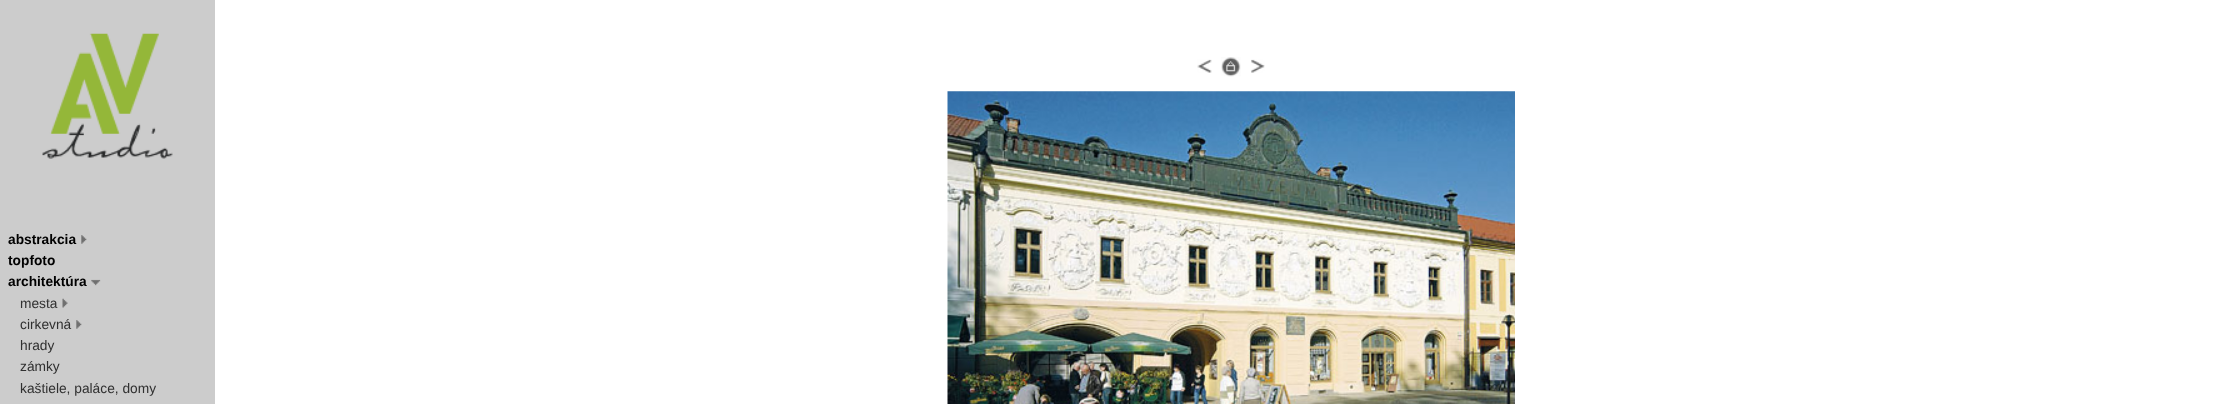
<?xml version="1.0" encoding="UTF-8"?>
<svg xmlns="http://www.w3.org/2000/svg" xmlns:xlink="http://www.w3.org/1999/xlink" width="2223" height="404">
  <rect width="100%" height="100%" fill="#ffffff" />
  <rect width="215" height="404" fill="#cccccc" />
  <image x="42" y="33" width="131" height="126" xlink:href="image1.png" />
  <image x="81" y="235" width="6" height="9" xlink:href="image2.png" />
  <image x="91" y="279" width="10" height="7" xlink:href="image3.png" />
  <image x="62" y="298" width="6" height="10" xlink:href="image4.png" />
  <image x="76" y="320" width="6" height="9" xlink:href="image2.png" />
  <image x="1197" y="59" width="15" height="14" xlink:href="image5.png" />
  <image x="1221" y="57" width="20" height="20" xlink:href="image6.png" />
  <image x="1251" y="59" width="14" height="14" xlink:href="image7.png" />
  <image x="947" y="91" width="568" height="313" xlink:href="image8.png" />
  <text x="8" y="244" style="font-family: Liberation Sans; font-size: 13.75px; font-weight: bold; fill: #000000">abstrakcia</text>
  <text x="8" y="265" style="font-family: Liberation Sans; font-size: 13.75px; font-weight: bold; fill: #000000">topfoto</text>
  <text x="8" y="286" style="font-family: Liberation Sans; font-size: 13.75px; font-weight: bold; fill: #000000">architektúra</text>
  <text x="20" y="308" style="font-family: Liberation Sans; font-size: 13.75px; fill: #303030">mesta</text>
  <text x="20" y="329" style="font-family: Liberation Sans; font-size: 13.75px; fill: #303030">cirkevná</text>
  <text x="20" y="350" style="font-family: Liberation Sans; font-size: 13.75px; fill: #303030">hrady</text>
  <text x="20" y="371" style="font-family: Liberation Sans; font-size: 13.75px; fill: #303030">zámky</text>
  <text x="20" y="393" style="font-family: Liberation Sans; font-size: 13.75px; fill: #303030">kaštiele, paláce, domy</text>
</svg>
